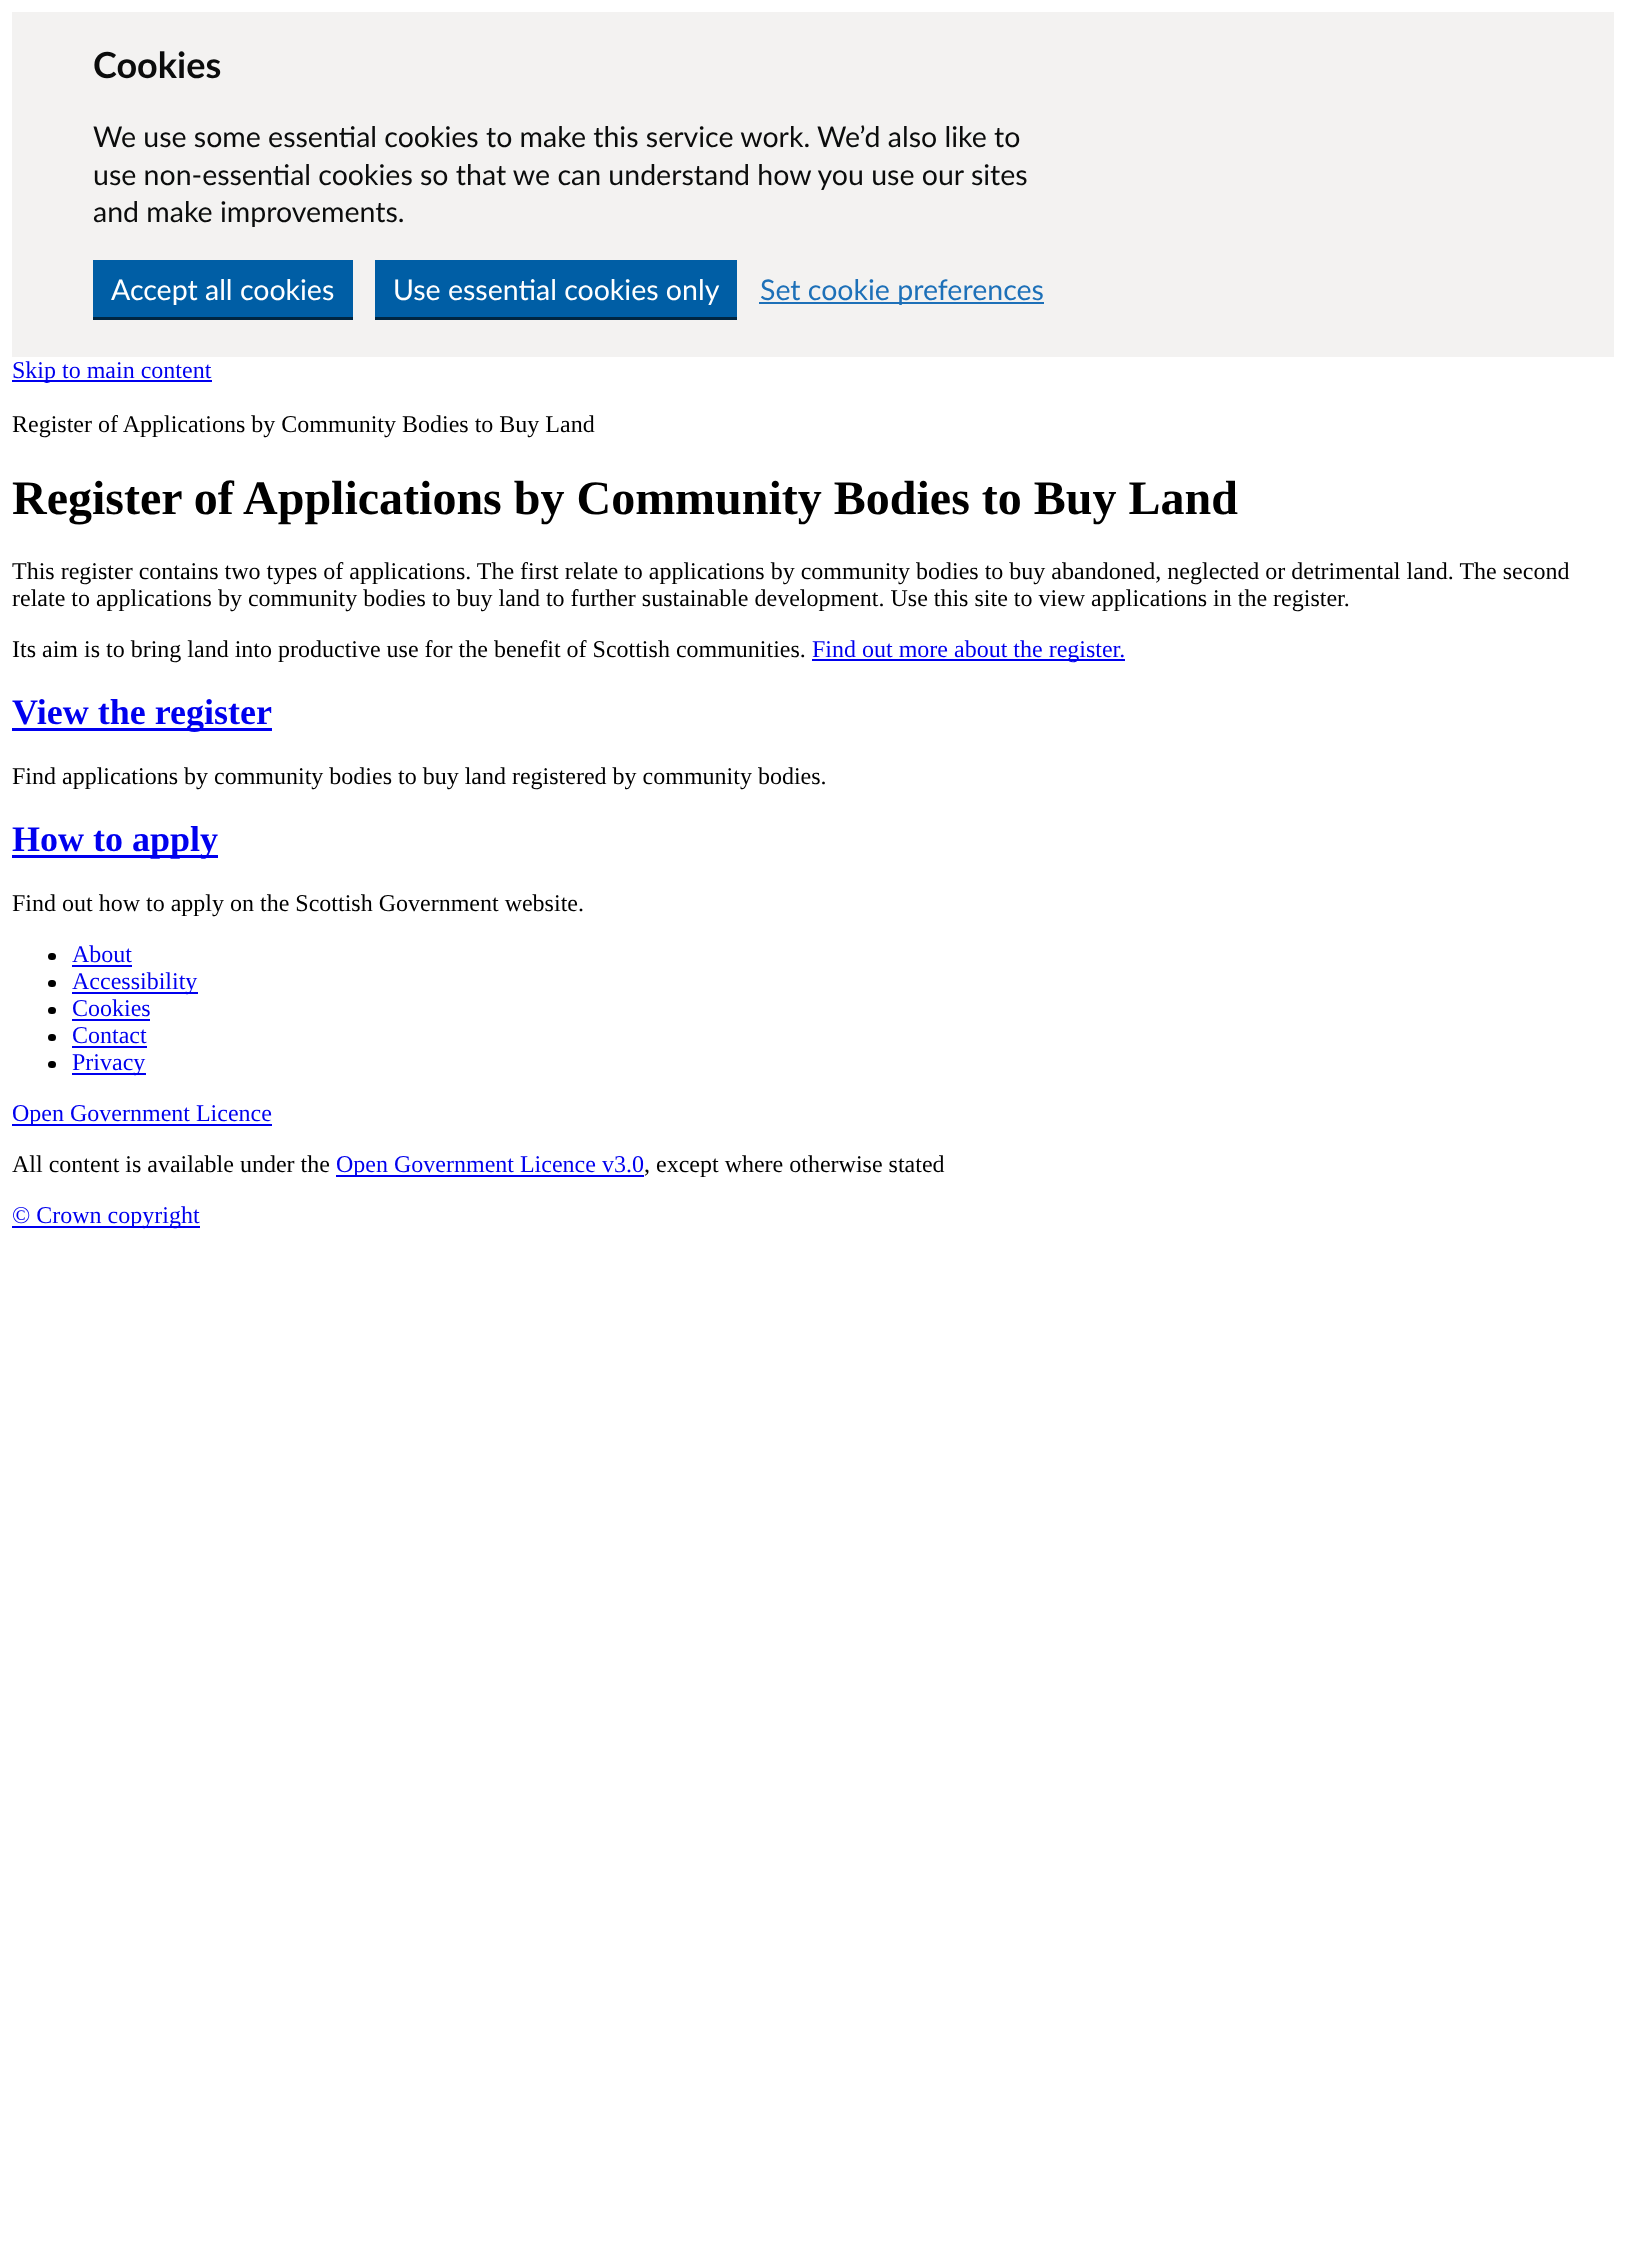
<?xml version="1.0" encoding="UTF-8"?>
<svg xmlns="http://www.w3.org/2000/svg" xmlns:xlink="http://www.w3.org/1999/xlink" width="1625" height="2245">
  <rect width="100%" height="100%" fill="#ffffff" />
  <rect x="12" y="12" width="1602" height="345" fill="#f3f2f1" />
  <path d="M 93 316 v 4 h 260 v -57 h -1 v 53 z" fill="#002642" />
  <rect x="93" y="260" width="260" height="57" fill="#005ea5" />
  <path d="M 375 316 v 4 h 362 v -57 h -1 v 53 z" fill="#002642" />
  <rect x="375" y="260" width="362" height="57" fill="#005ea5" />
  <rect x="759" y="302" width="285" height="2" fill="#1d70b8" />
  <rect x="12" y="380" width="200" height="2" fill="#0000ee" />
  <rect x="812" y="659" width="313" height="2" fill="#0000ee" />
  <rect x="12" y="728" width="260" height="3" fill="#0000ee" />
  <rect x="12" y="855" width="206" height="3" fill="#0000ee" />
  <rect x="48" y="953" width="8" height="7" rx="3.5" fill="#000000" />
  <rect x="72" y="965" width="60" height="2" fill="#0000ee" />
  <rect x="48" y="980" width="8" height="7" rx="3.5" fill="#000000" />
  <rect x="72" y="992" width="126" height="2" fill="#0000ee" />
  <rect x="48" y="1007" width="8" height="7" rx="3.5" fill="#000000" />
  <rect x="72" y="1019" width="78" height="2" fill="#0000ee" />
  <rect x="48" y="1034" width="8" height="7" rx="3.5" fill="#000000" />
  <rect x="72" y="1046" width="75" height="2" fill="#0000ee" />
  <rect x="48" y="1061" width="8" height="7" rx="3.5" fill="#000000" />
  <rect x="72" y="1073" width="74" height="2" fill="#0000ee" />
  <rect x="12" y="1124" width="260" height="2" fill="#0000ee" />
  <rect x="336" y="1175" width="308" height="2" fill="#0000ee" />
  <rect x="12" y="1226" width="188" height="2" fill="#0000ee" />
  <text x="93" y="78" style="font-family: Lato; font-size: 36px; font-weight: bold; fill: #0b0c0c">Cookies</text>
  <text x="93" y="147" style="font-family: Lato; font-size: 28.5px; fill: #0b0c0c">We use some essential cookies to make this service work. We’d also like to</text>
  <text x="93" y="185" style="font-family: Lato; font-size: 28.5px; fill: #0b0c0c">use non-essential cookies so that we can understand how you use our sites</text>
  <text x="93" y="222" style="font-family: Lato; font-size: 28.5px; fill: #0b0c0c">and make improvements.</text>
  <text x="111" y="300" style="font-family: Lato; font-size: 28.5px; fill: #ffffff">Accept all cookies</text>
  <text x="393" y="300" style="font-family: Lato; font-size: 28.5px; fill: #ffffff">Use essential cookies only</text>
  <text x="760" y="300" style="font-family: Lato; font-size: 28.5px; fill: #1d70b8">Set cookie preferences</text>
  <text x="12" y="378" style="font-family: Liberation Serif; font-size: 24px; fill: #0000ee">Skip to main content</text>
  <text x="12" y="432" style="font-family: Liberation Serif; font-size: 24px; fill: #000000">Register of Applications by Community Bodies to Buy Land</text>
  <text x="12" y="514" style="font-family: Liberation Serif; font-size: 48px; font-weight: bold; fill: #000000">Register of Applications by Community Bodies to Buy Land</text>
  <text x="12" y="579" style="font-family: Liberation Serif; font-size: 24px; fill: #000000">This register contains two types of applications. The first relate to applications by community bodies to buy abandoned, neglected or detrimental land. The second</text>
  <text x="12" y="606" style="font-family: Liberation Serif; font-size: 24px; fill: #000000">relate to applications by community bodies to buy land to further sustainable development. Use this site to view applications in the register.</text>
  <text x="12" y="657" style="font-family: Liberation Serif; font-size: 24px; fill: #000000">Its aim is to bring land into productive use for the benefit of Scottish communities.</text>
  <text x="812" y="657" style="font-family: Liberation Serif; font-size: 24px; fill: #0000ee">Find out more about the register.</text>
  <text x="12" y="724" style="font-family: Liberation Serif; font-size: 36px; font-weight: bold; fill: #0000ee">View the register</text>
  <text x="12" y="784" style="font-family: Liberation Serif; font-size: 24px; fill: #000000">Find applications by community bodies to buy land registered by community bodies.</text>
  <text x="12" y="851" style="font-family: Liberation Serif; font-size: 36px; font-weight: bold; fill: #0000ee">How to apply</text>
  <text x="12" y="911" style="font-family: Liberation Serif; font-size: 24px; fill: #000000">Find out how to apply on the Scottish Government website.</text>
  <text x="72" y="962" style="font-family: Liberation Serif; font-size: 24px; fill: #0000ee">About</text>
  <text x="72" y="989" style="font-family: Liberation Serif; font-size: 24px; fill: #0000ee">Accessibility</text>
  <text x="72" y="1016" style="font-family: Liberation Serif; font-size: 24px; fill: #0000ee">Cookies</text>
  <text x="72" y="1043" style="font-family: Liberation Serif; font-size: 24px; fill: #0000ee">Contact</text>
  <text x="72" y="1070" style="font-family: Liberation Serif; font-size: 24px; fill: #0000ee">Privacy</text>
  <text x="12" y="1121" style="font-family: Liberation Serif; font-size: 24px; fill: #0000ee">Open Government Licence</text>
  <text x="12" y="1172" style="font-family: Liberation Serif; font-size: 24px; fill: #000000">All content is available under the</text>
  <text x="336" y="1172" style="font-family: Liberation Serif; font-size: 24px; fill: #0000ee">Open Government Licence v3.0</text>
  <text x="644" y="1172" style="font-family: Liberation Serif; font-size: 24px; fill: #000000">, except where otherwise stated</text>
  <text x="12" y="1223" style="font-family: Liberation Serif; font-size: 24px; fill: #0000ee">© Crown copyright</text>
</svg>
